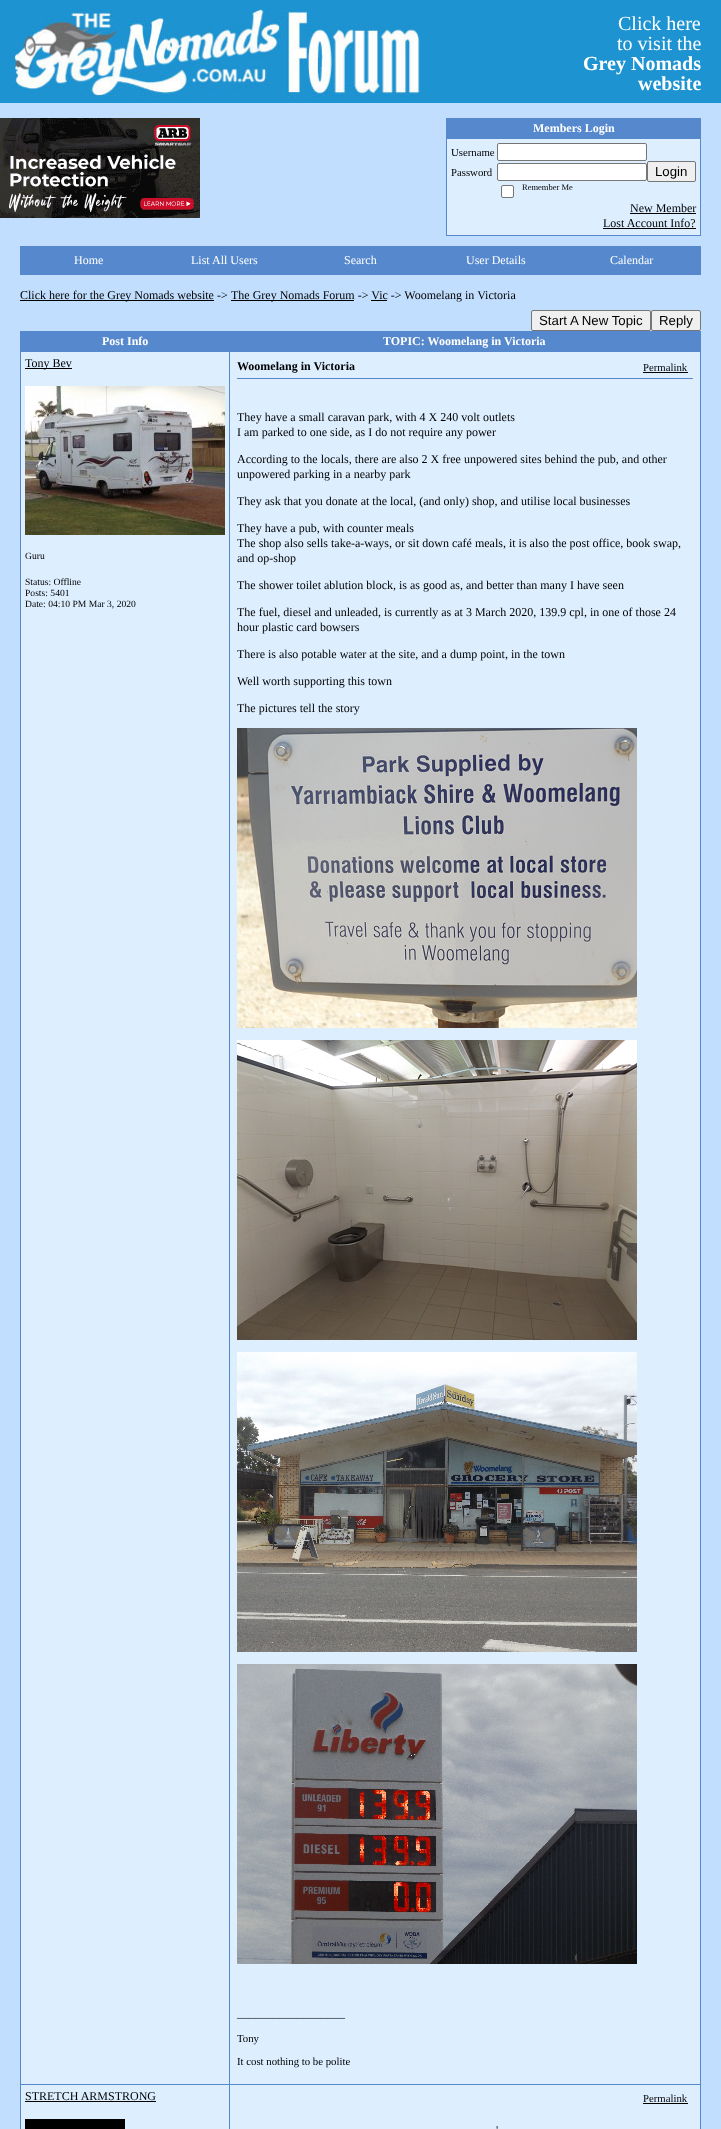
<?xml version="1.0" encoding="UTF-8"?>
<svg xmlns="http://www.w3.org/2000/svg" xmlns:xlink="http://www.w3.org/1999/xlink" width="721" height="2129">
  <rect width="100%" height="100%" fill="#c1defe" />
  <rect width="721" height="103" fill="#1d93d1" />
  <image x="14" y="9" width="406" height="88" xlink:href="image1.png" />
  <image x="0" y="118" width="200" height="100" xlink:href="image2.png" />
  <rect x="446" y="118" width="255" height="1" fill="#5588cc" />
  <rect x="700" y="118" width="1" height="118" fill="#5588cc" />
  <rect x="446" y="235" width="255" height="1" fill="#5588cc" />
  <rect x="446" y="118" width="1" height="118" fill="#5588cc" />
  <rect x="447" y="119" width="253" height="19" fill="#5588cc" />
  <rect x="446" y="138" width="255" height="1" fill="#5588cc" />
  <rect x="447" y="139" width="253" height="96" fill="#ddeeff" />
  <rect x="497.5" y="143.5" width="149" height="17" rx="1.5" fill="#ffffff" stroke="#767676" />
  <rect x="497.5" y="163.5" width="149" height="17" rx="1.5" fill="#ffffff" stroke="#767676" />
  <rect x="647.5" y="161.5" width="48" height="20" rx="1.5" fill="#efefef" stroke="#767676" />
  <rect x="501.5" y="185.5" width="12" height="12" rx="1.5" fill="#ffffff" stroke="#767676" />
  <rect x="630" y="213" width="66" height="1" fill="#000000" />
  <rect x="603" y="228" width="93" height="1" fill="#000000" />
  <rect x="20.5" y="246.5" width="680" height="28" fill="none" stroke="#5588cc" />
  <rect x="21" y="247" width="679" height="27" fill="#5588cc" />
  <rect x="20" y="300" width="194" height="1" fill="#000000" />
  <rect x="231" y="300" width="123" height="1" fill="#000000" />
  <rect x="371" y="300" width="16" height="1" fill="#000000" />
  <rect x="531.5" y="310.5" width="119" height="20" rx="1.5" fill="#efefef" stroke="#767676" />
  <rect x="651.5" y="310.5" width="49" height="20" rx="1.5" fill="#efefef" stroke="#767676" />
  <rect x="20" y="331" width="681" height="1" fill="#5588cc" />
  <rect x="700" y="331" width="1" height="1798" fill="#5588cc" />
  <rect x="20" y="331" width="1" height="1798" fill="#5588cc" />
  <rect x="21" y="332" width="679" height="19" fill="#5588cc" />
  <rect x="21" y="352" width="208" height="1732" fill="#ddeeff" />
  <rect x="229" y="351" width="472" height="1" fill="#5588cc" />
  <rect x="229" y="2084" width="472" height="1" fill="#5588cc" />
  <rect x="229" y="2084" width="1" height="45" fill="#5588cc" />
  <rect x="20" y="2084" width="210" height="1" fill="#5588cc" />
  <rect x="229" y="351" width="1" height="1734" fill="#5588cc" />
  <rect x="20" y="351" width="210" height="1" fill="#5588cc" />
  <rect x="25" y="368" width="47" height="1" fill="#000000" />
  <image x="25" y="386" width="200" height="149" xlink:href="image3.png" />
  <rect x="230" y="352" width="470" height="1732" fill="#ddeeff" />
  <rect x="643" y="372" width="45" height="1" fill="#000000" />
  <rect x="237" y="378" width="456" height="1" fill="#5588cc" />
  <image x="237" y="728" width="400" height="300" xlink:href="image4.png" />
  <image x="237" y="1040" width="400" height="300" xlink:href="image5.png" />
  <image x="237" y="1352" width="400" height="300" xlink:href="image6.png" />
  <image x="237" y="1664" width="400" height="300" xlink:href="image7.png" />
  <rect x="21" y="2085" width="208" height="44" fill="#ddeeff" />
  <rect x="25" y="2101" width="131" height="1" fill="#000000" />
  <rect x="25" y="2119" width="100" height="10" fill="#000000" />
  <rect x="230" y="2085" width="470" height="44" fill="#ddeeff" />
  <rect x="643" y="2103" width="45" height="1" fill="#000000" />
  <text x="618" y="30" style="font-family: Liberation Serif; font-size: 20px; fill: #ffffff">Click here</text>
  <text x="617" y="50" style="font-family: Liberation Serif; font-size: 20px; fill: #ffffff">to visit the</text>
  <text x="583" y="70" style="font-family: Liberation Serif; font-size: 20px; font-weight: bold; fill: #ffffff">Grey Nomads</text>
  <text x="638" y="90" style="font-family: Liberation Serif; font-size: 20px; font-weight: bold; fill: #ffffff">website</text>
  <text x="533" y="132" style="font-family: Liberation Serif; font-size: 12px; font-weight: bold; fill: #ffffff">Members Login</text>
  <text x="451" y="156" style="font-family: Liberation Serif; font-size: 10.75px; fill: #000000">Username</text>
  <text x="451" y="176" style="font-family: Liberation Serif; font-size: 10.75px; fill: #000000">Password</text>
  <text x="655" y="176" style="font-family: Liberation Sans; font-size: 13.25px; fill: #000000">Login</text>
  <text x="522" y="190" style="font-family: Liberation Serif; font-size: 8.5px; fill: #000000">Remember Me</text>
  <text x="630" y="212" style="font-family: Liberation Serif; font-size: 12px; fill: #000000">New Member</text>
  <text x="603" y="227" style="font-family: Liberation Serif; font-size: 12px; fill: #000000">Lost Account Info?</text>
  <text x="74" y="264" style="font-family: Liberation Serif; font-size: 12px; fill: #ffffff">Home</text>
  <text x="191" y="264" style="font-family: Liberation Serif; font-size: 12px; fill: #ffffff">List All Users</text>
  <text x="344" y="264" style="font-family: Liberation Serif; font-size: 12px; fill: #ffffff">Search</text>
  <text x="466" y="264" style="font-family: Liberation Serif; font-size: 12px; fill: #ffffff">User Details</text>
  <text x="610" y="264" style="font-family: Liberation Serif; font-size: 12px; fill: #ffffff">Calendar</text>
  <text x="20" y="299" style="font-family: Liberation Serif; font-size: 12px; fill: #000000">Click here for the Grey Nomads website -&gt;</text>
  <text x="231" y="299" style="font-family: Liberation Serif; font-size: 12px; fill: #000000">The Grey Nomads Forum -&gt; Vic -&gt; Woomelang in Victoria</text>
  <text x="539" y="325" style="font-family: Liberation Sans; font-size: 13.25px; fill: #000000">Start A New Topic</text>
  <text x="659" y="325" style="font-family: Liberation Sans; font-size: 13.25px; fill: #000000">Reply</text>
  <text x="102" y="345" style="font-family: Liberation Serif; font-size: 12px; font-weight: bold; fill: #ffffff">Post Info</text>
  <text x="383" y="345" style="font-family: Liberation Serif; font-size: 12px; font-weight: bold; fill: #ffffff">TOPIC: Woomelang in Victoria</text>
  <text x="25" y="367" style="font-family: Liberation Serif; font-size: 12px; fill: #000000">Tony Bev</text>
  <text x="25" y="559" style="font-family: Liberation Serif; font-size: 9.6px; fill: #000000">Guru</text>
  <text x="25" y="585" style="font-family: Liberation Serif; font-size: 9.6px; fill: #000000">Status: Offline</text>
  <text x="25" y="596" style="font-family: Liberation Serif; font-size: 9.6px; fill: #000000">Posts: 5401</text>
  <text x="25" y="607" style="font-family: Liberation Serif; font-size: 9.6px; fill: #000000">Date: 04:10 PM Mar 3, 2020</text>
  <text x="237" y="370" style="font-family: Liberation Serif; font-size: 12px; font-weight: bold; fill: #000000">Woomelang in Victoria</text>
  <text x="643" y="371" style="font-family: Liberation Serif; font-size: 10.75px; fill: #000000">Permalink</text>
  <text x="237" y="421" style="font-family: Liberation Serif; font-size: 12px; fill: #000000">They have a small caravan park, with 4 X 240 volt outlets</text>
  <text x="237" y="436" style="font-family: Liberation Serif; font-size: 12px; fill: #000000">I am parked to one side, as I do not require any power</text>
  <text x="237" y="463" style="font-family: Liberation Serif; font-size: 12px; fill: #000000">According to the locals, there are also 2 X free unpowered sites behind the pub, and other</text>
  <text x="237" y="478" style="font-family: Liberation Serif; font-size: 12px; fill: #000000">unpowered parking in a nearby park</text>
  <text x="237" y="505" style="font-family: Liberation Serif; font-size: 12px; fill: #000000">They ask that you donate at the local, (and only) shop, and utilise local businesses</text>
  <text x="237" y="532" style="font-family: Liberation Serif; font-size: 12px; fill: #000000">They have a pub, with counter meals</text>
  <text x="237" y="547" style="font-family: Liberation Serif; font-size: 12px; fill: #000000">The shop also sells take-a-ways, or sit down café meals, it is also the post office, book swap,</text>
  <text x="237" y="562" style="font-family: Liberation Serif; font-size: 12px; fill: #000000">and op-shop</text>
  <text x="237" y="589" style="font-family: Liberation Serif; font-size: 12px; fill: #000000">The shower toilet ablution block, is as good as, and better than many I have seen</text>
  <text x="237" y="616" style="font-family: Liberation Serif; font-size: 12px; fill: #000000">The fuel, diesel and unleaded, is currently as at 3 March 2020, 139.9 cpl, in one of those 24</text>
  <text x="237" y="631" style="font-family: Liberation Serif; font-size: 12px; fill: #000000">hour plastic card bowsers</text>
  <text x="237" y="658" style="font-family: Liberation Serif; font-size: 12px; fill: #000000">There is also potable water at the site, and a dump point, in the town</text>
  <text x="237" y="685" style="font-family: Liberation Serif; font-size: 12px; fill: #000000">Well worth supporting this town</text>
  <text x="237" y="712" style="font-family: Liberation Serif; font-size: 12px; fill: #000000">The pictures tell the story</text>
  <text x="237" y="2017" style="font-family: Liberation Serif; font-size: 12px; fill: #000000">__________________</text>
  <text x="237" y="2042" style="font-family: Liberation Serif; font-size: 10.75px; fill: #000000">Tony</text>
  <text x="237" y="2065" style="font-family: Liberation Serif; font-size: 10.75px; fill: #000000">It cost nothing to be polite</text>
  <text x="25" y="2100" style="font-family: Liberation Serif; font-size: 12px; fill: #000000">STRETCH ARMSTRONG</text>
  <text x="643" y="2102" style="font-family: Liberation Serif; font-size: 10.75px; fill: #000000">Permalink</text>
  <text x="496" y="2134" style="font-family: Liberation Serif; font-size: 12px; fill: #000000">'</text>
</svg>
